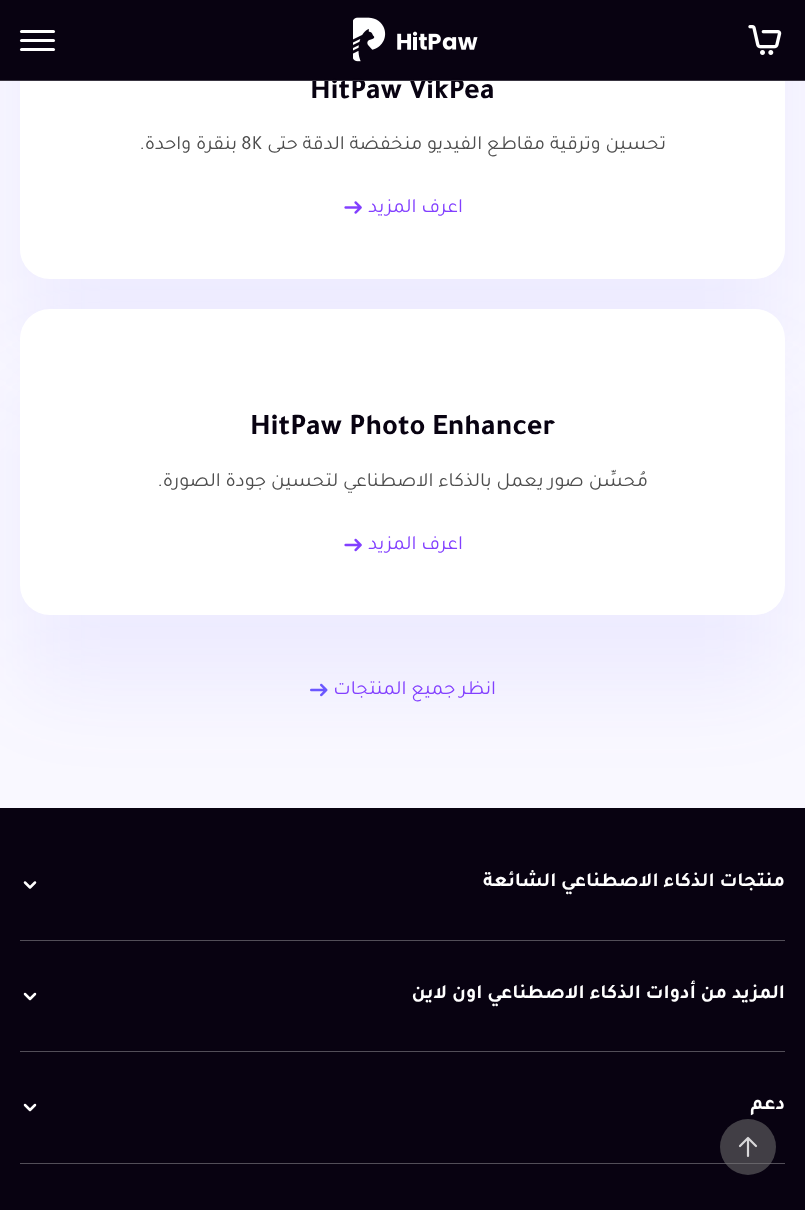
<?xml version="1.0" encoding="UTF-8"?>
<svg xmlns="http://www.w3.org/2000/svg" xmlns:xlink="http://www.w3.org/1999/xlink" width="805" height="1210">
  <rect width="100%" height="100%" fill="#f9f8ff" />
  <rect x="20" y="-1" width="765" height="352" rx="30" fill="#6b57ff" fill-opacity="0.08" filter="blur(44px)" />
  <rect x="20" y="-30" width="765" height="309" rx="30" fill="#ffffff" />
  <rect width="805" height="80" fill="#080211" />
  <image x="748" y="25" width="34" height="30" xlink:href="image1.png" />
  <image x="353" y="17" width="125" height="45" xlink:href="image2.png" />
  <rect x="20" y="39" width="35" height="3" rx="1.5" fill="#ffffff" />
  <rect x="20" y="30" width="35" height="3" rx="1.5" fill="#ffffff" />
  <rect x="20" y="48" width="35" height="3" rx="1.5" fill="#ffffff" />
  <image x="344" y="201" width="18" height="13" xlink:href="image3.png" />
  <rect y="808" width="805" height="402" fill="#080211" />
  <rect x="20" y="381" width="765" height="307" rx="30" fill="#6b57ff" fill-opacity="0.08" filter="blur(44px)" />
  <rect x="20" y="309" width="765" height="306" rx="30" fill="#ffffff" />
  <image x="344" y="538" width="18" height="14" xlink:href="image4.png" />
  <image x="310" y="683" width="18" height="14" xlink:href="image5.png" />
  <rect x="20" y="940" width="765" height="1" fill="#524e58" />
  <path d="M 35 882.5 l -5 5 l -5 -5" fill="none" stroke="#ffffff" stroke-width="2.5" stroke-linecap="round" stroke-linejoin="round" />
  <rect x="20" y="1051" width="765" height="1" fill="#524e58" />
  <path d="M 35 994 l -5 5 l -5 -5" fill="none" stroke="#ffffff" stroke-width="2.5" stroke-linecap="round" stroke-linejoin="round" />
  <rect x="20" y="1163" width="765" height="1" fill="#524e58" />
  <path d="M 35 1105 l -5 5 l -5 -5" fill="none" stroke="#ffffff" stroke-width="2.5" stroke-linecap="round" stroke-linejoin="round" />
  <circle cx="748" cy="1147" r="28" fill="#797979" fill-opacity="0.5" />
  <path d="M 748 1156 v -18 m 0 0 l -8 8 m 8 -8 l 8 8" fill="none" stroke="#d9d8da" stroke-width="2.2" stroke-linecap="round" stroke-linejoin="round" />
  <text x="310" y="98" style="font-family: Tajawal; font-size: 30px; font-weight: bold; fill: #080211">HitPaw VikPea</text>
  <rect y="80" width="805" height="1" fill="#393541" />
  <text x="666" y="149" style="font-family: Tajawal; font-size: 20px; direction: rtl; fill: #4d4d4d">تحسين وترقية مقاطع الفيديو منخفضة الدقة حتى</text>
  <text x="241" y="149" style="font-family: Tajawal; font-size: 20px; fill: #4d4d4d">8K</text>
  <text x="237" y="149" style="font-family: Tajawal; font-size: 20px; direction: rtl; fill: #4d4d4d">بنقرة واحدة.</text>
  <text x="463" y="212" style="font-family: Tajawal; font-size: 20px; direction: rtl; fill: #823fff">اعرف المزيد</text>
  <text x="250" y="434" style="font-family: Tajawal; font-size: 30px; font-weight: bold; fill: #080211">HitPaw Photo Enhancer</text>
  <text x="648" y="486" style="font-family: Tajawal; font-size: 20px; direction: rtl; fill: #4d4d4d">مُحسِّن صور يعمل بالذكاء الاصطناعي لتحسين جودة الصورة.</text>
  <text x="463" y="549" style="font-family: Tajawal; font-size: 20px; direction: rtl; fill: #823fff">اعرف المزيد</text>
  <text x="496" y="694" style="font-family: Tajawal; font-size: 20px; direction: rtl; fill: #823fff">انظر جميع المنتجات</text>
  <text x="785" y="886" style="font-family: Tajawal; font-size: 20px; font-weight: bold; direction: rtl; fill: #ffffff">منتجات الذكاء الاصطناعي الشائعة</text>
  <text x="785" y="998" style="font-family: Tajawal; font-size: 20px; font-weight: bold; direction: rtl; fill: #ffffff">المزيد من أدوات الذكاء الاصطناعي اون لاين</text>
  <text x="785" y="1109" style="font-family: Tajawal; font-size: 20px; font-weight: bold; direction: rtl; fill: #ffffff">دعم</text>
</svg>
